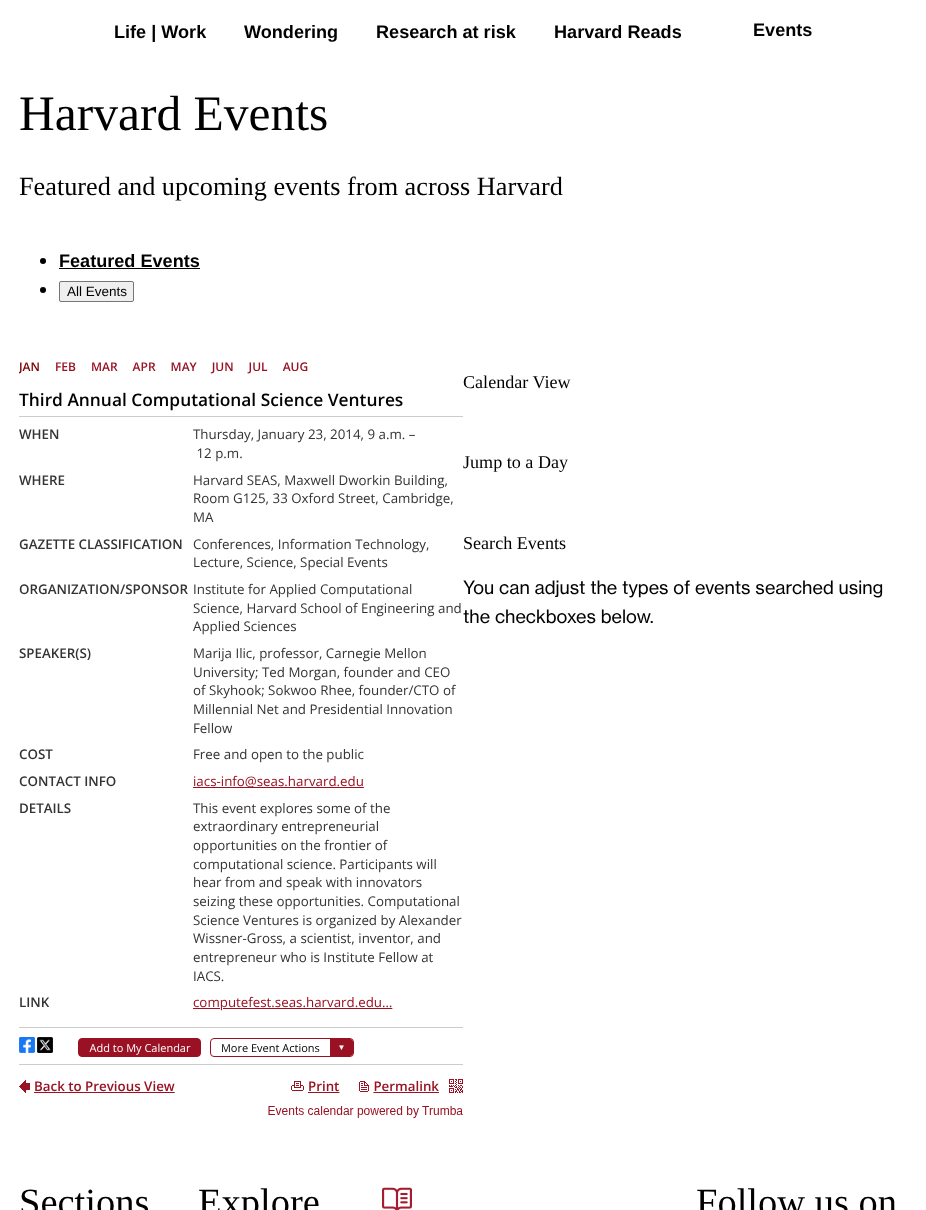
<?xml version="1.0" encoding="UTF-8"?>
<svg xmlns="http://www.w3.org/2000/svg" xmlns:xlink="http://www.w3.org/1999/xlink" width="926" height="1210">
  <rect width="100%" height="100%" fill="#ffffff" />
  <circle cx="43" cy="261" r="3" fill="#000000" />
  <rect x="59" y="268" width="141" height="1" fill="#000000" />
  <circle cx="43" cy="290" r="3" fill="#000000" />
  <rect x="59.5" y="281.5" width="74" height="20" rx="1.5" fill="#efefef" stroke="#767676" />
  <image x="19" y="362" width="289" height="12" xlink:href="image1.png" />
  <image x="19" y="392" width="444" height="726" xlink:href="image2.png" />
  <image x="382" y="1187" width="30" height="23" xlink:href="image3.png" />
  <text x="114" y="38" style="font-family: Liberation Sans; font-size: 18.1px; font-weight: bold; fill: #000000">Life | Work</text>
  <text x="244" y="38" style="font-family: Liberation Sans; font-size: 18.1px; font-weight: bold; fill: #000000">Wondering</text>
  <text x="376" y="38" style="font-family: Liberation Sans; font-size: 18.1px; font-weight: bold; fill: #000000">Research at risk</text>
  <text x="554" y="38" style="font-family: Liberation Sans; font-size: 18.1px; font-weight: bold; fill: #000000">Harvard Reads</text>
  <text x="753" y="36" style="font-family: Liberation Sans; font-size: 18.1px; font-weight: bold; fill: #000000">Events</text>
  <text x="19" y="130" style="font-family: Liberation Serif; font-size: 49.5px; fill: #000000">Harvard Events</text>
  <text x="19" y="195" style="font-family: Liberation Serif; font-size: 26.25px; fill: #000000">Featured and upcoming events from across Harvard</text>
  <text x="59" y="267" style="font-family: Liberation Sans; font-size: 18.1px; font-weight: bold; fill: #000000">Featured Events</text>
  <text x="67" y="296" style="font-family: Liberation Sans; font-size: 13.5px; fill: #000000">All Events</text>
  <text x="463" y="388" style="font-family: Liberation Serif; font-size: 18.1px; fill: #000000">Calendar View</text>
  <text x="463" y="468" style="font-family: Liberation Serif; font-size: 18.1px; fill: #000000">Jump to a Day</text>
  <text x="463" y="549" style="font-family: Liberation Serif; font-size: 18.1px; fill: #000000">Search Events</text>
  <text x="463" y="594" style="font-family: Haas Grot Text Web; font-size: 18.1px; fill: #000000">You can adjust the types of events searched using</text>
  <text x="463" y="623" style="font-family: Haas Grot Text Web; font-size: 18.1px; fill: #000000">the checkboxes below.</text>
  <text x="19" y="1215" style="font-family: Liberation Serif; font-size: 38.5px; fill: #000000">Sections</text>
  <text x="198" y="1215" style="font-family: Liberation Serif; font-size: 38.5px; fill: #000000">Explore</text>
  <text x="696" y="1215" style="font-family: Liberation Serif; font-size: 38.5px; fill: #000000">Follow us on</text>
</svg>
